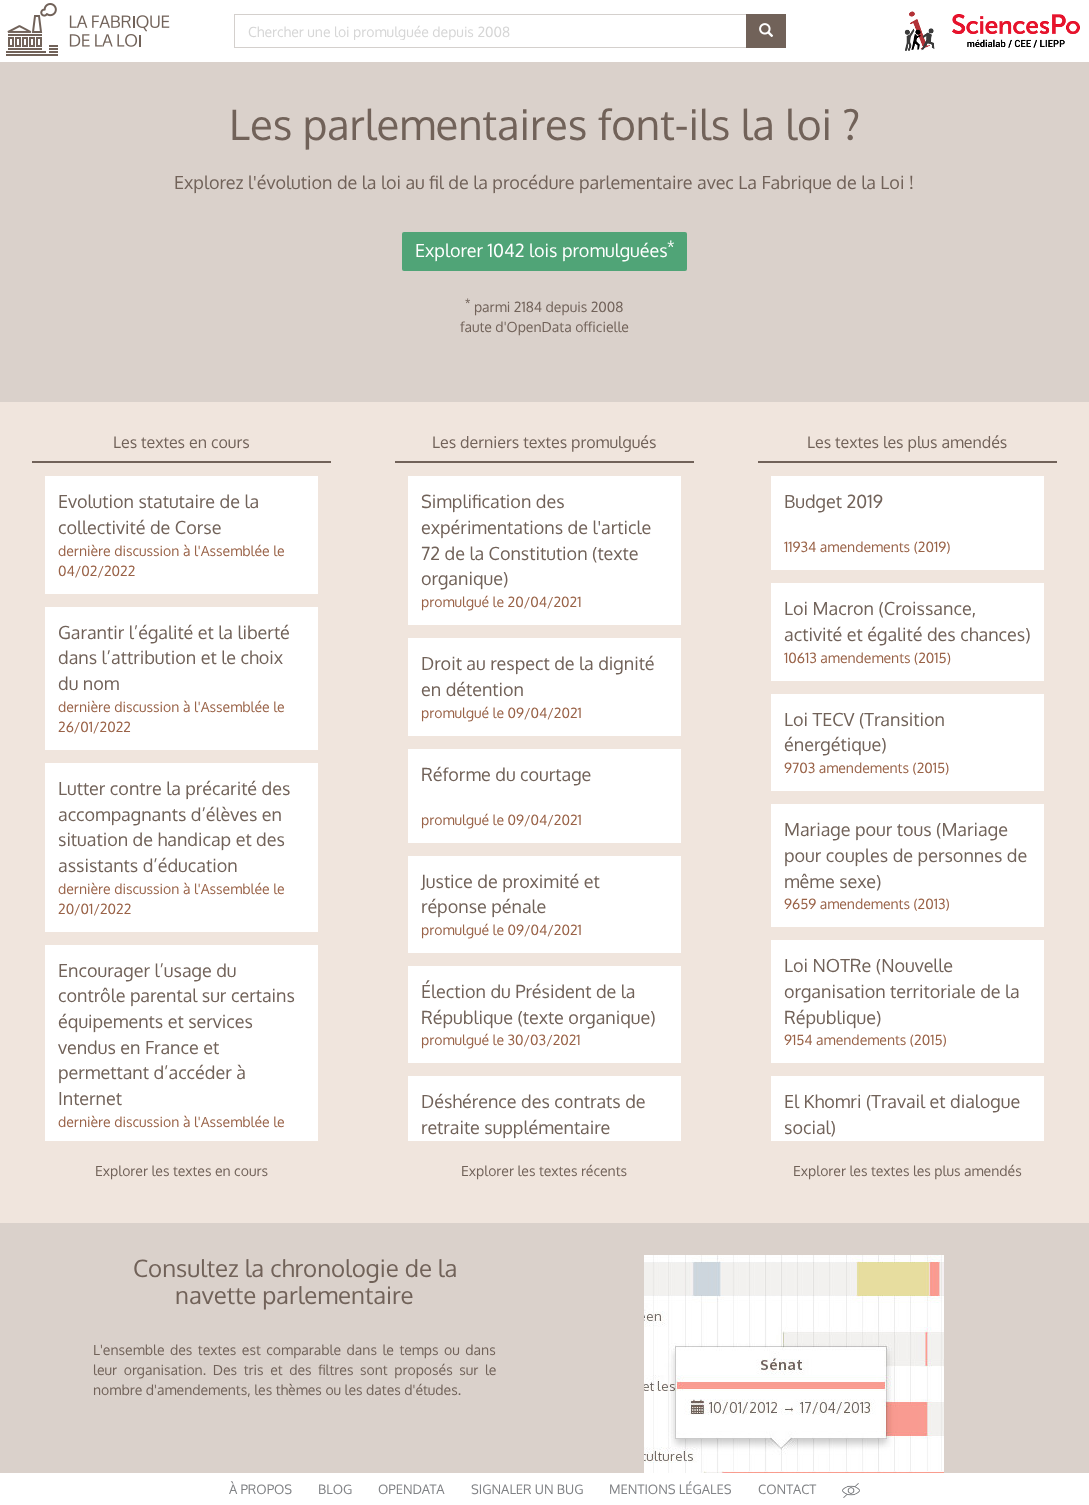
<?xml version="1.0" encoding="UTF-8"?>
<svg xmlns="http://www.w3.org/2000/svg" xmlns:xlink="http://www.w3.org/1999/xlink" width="1089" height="1505">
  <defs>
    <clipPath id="clip1"><rect x="248" y="23" width="496" height="17" /></clipPath>
  </defs>
  <rect width="100%" height="100%" fill="#dad1cb" />
  <rect width="1089" height="62" fill="#ffffff" />
  <image x="6" y="3" width="164" height="53" xlink:href="image1.png" />
  <rect x="234" y="14" width="512" height="1" fill="#d4d0cd" />
  <rect x="234" y="47" width="512" height="1" fill="#d4d0cd" />
  <rect x="234" y="14" width="1" height="34" fill="#d4d0cd" />
  <rect x="746" y="14" width="40" height="34" fill="#716259" />
  <image x="759" y="23" width="15" height="14" xlink:href="image2.png" />
  <image x="904" y="11" width="31" height="40" xlink:href="image3.png" />
  <image x="952" y="14" width="128" height="34" xlink:href="image4.png" />
  <rect x="402" y="232" width="285" height="39" rx="2" fill="#50a477" />
  <rect y="402" width="1089" height="821" fill="#f0e5dd" />
  <rect x="32" y="461" width="299" height="2" fill="#716259" />
  <rect x="45" y="476" width="273" height="118" fill="#ffffff" />
  <rect x="45" y="607" width="273" height="143" fill="#ffffff" />
  <rect x="45" y="763" width="273" height="169" fill="#ffffff" />
  <rect x="45" y="945" width="273" height="196" fill="#ffffff" />
  <rect x="395" y="461" width="299" height="2" fill="#716259" />
  <rect x="408" y="476" width="273" height="149" fill="#ffffff" />
  <rect x="408" y="638" width="273" height="98" fill="#ffffff" />
  <rect x="408" y="749" width="273" height="94" fill="#ffffff" />
  <rect x="408" y="856" width="273" height="97" fill="#ffffff" />
  <rect x="408" y="966" width="273" height="97" fill="#ffffff" />
  <rect x="408" y="1076" width="273" height="65" fill="#ffffff" />
  <rect x="758" y="461" width="299" height="2" fill="#716259" />
  <rect x="771" y="476" width="273" height="94" fill="#ffffff" />
  <rect x="771" y="583" width="273" height="98" fill="#ffffff" />
  <rect x="771" y="694" width="273" height="97" fill="#ffffff" />
  <rect x="771" y="804" width="273" height="123" fill="#ffffff" />
  <rect x="771" y="940" width="273" height="123" fill="#ffffff" />
  <rect x="771" y="1076" width="273" height="65" fill="#ffffff" />
  <image x="644" y="1255" width="300" height="218" xlink:href="image5.png" />
  <rect y="1473" width="1089" height="32" fill="#ffffff" />
  <image x="842" y="1483" width="18" height="15" xlink:href="image6.png" />
  <g clip-path="url(#clip1)">
    <text x="248" y="37" style="font-family: Oxygen; font-size: 14px; fill: #d6d6d6">Chercher une loi promulguée depuis 2008</text>
  </g>
  <text x="229" y="140" style="font-family: Oxygen; font-size: 42px; fill: #716259">Les parlementaires font-ils la loi ?</text>
  <text x="174" y="189" style="font-family: Oxygen; font-size: 18px; fill: #716259">Explorez l'évolution de la loi au fil de la procédure parlementaire avec La Fabrique de la Loi !</text>
  <text x="415" y="257" style="font-family: Oxygen; font-size: 18px; fill: #ffffff">Explorer 1042 lois promulguées</text>
  <text x="667" y="251" style="font-family: Oxygen; font-size: 14px; fill: #ffffff">*</text>
  <text x="465" y="306" style="font-family: Oxygen; font-size: 10px; fill: #716259">*</text>
  <text x="474" y="312" style="font-family: Oxygen; font-size: 14px; fill: #716259">parmi 2184 depuis 2008</text>
  <text x="460" y="332" style="font-family: Oxygen; font-size: 14px; fill: #716259">faute d'OpenData officielle</text>
  <text x="113" y="448" style="font-family: Oxygen; font-size: 16px; fill: #716259">Les textes en cours</text>
  <text x="58" y="508" style="font-family: Oxygen; font-size: 18px; fill: #716259">Evolution statutaire de la</text>
  <text x="58" y="534" style="font-family: Oxygen; font-size: 18px; fill: #716259">collectivité de Corse</text>
  <text x="58" y="556" style="font-family: Oxygen; font-size: 14px; fill: #996247">dernière discussion à l'Assemblée le</text>
  <text x="58" y="576" style="font-family: Oxygen; font-size: 14px; fill: #996247">04/02/2022</text>
  <text x="58" y="639" style="font-family: Oxygen; font-size: 18px; fill: #716259">Garantir l’égalité et la liberté</text>
  <text x="58" y="664" style="font-family: Oxygen; font-size: 18px; fill: #716259">dans l’attribution et le choix</text>
  <text x="58" y="690" style="font-family: Oxygen; font-size: 18px; fill: #716259">du nom</text>
  <text x="58" y="712" style="font-family: Oxygen; font-size: 14px; fill: #996247">dernière discussion à l'Assemblée le</text>
  <text x="58" y="732" style="font-family: Oxygen; font-size: 14px; fill: #996247">26/01/2022</text>
  <text x="58" y="795" style="font-family: Oxygen; font-size: 18px; fill: #716259">Lutter contre la précarité des</text>
  <text x="58" y="821" style="font-family: Oxygen; font-size: 18px; fill: #716259">accompagnants d’élèves en</text>
  <text x="58" y="846" style="font-family: Oxygen; font-size: 18px; fill: #716259">situation de handicap et des</text>
  <text x="58" y="872" style="font-family: Oxygen; font-size: 18px; fill: #716259">assistants d’éducation</text>
  <text x="58" y="894" style="font-family: Oxygen; font-size: 14px; fill: #996247">dernière discussion à l'Assemblée le</text>
  <text x="58" y="914" style="font-family: Oxygen; font-size: 14px; fill: #996247">20/01/2022</text>
  <text x="58" y="977" style="font-family: Oxygen; font-size: 18px; fill: #716259">Encourager l’usage du</text>
  <text x="58" y="1002" style="font-family: Oxygen; font-size: 18px; fill: #716259">contrôle parental sur certains</text>
  <text x="58" y="1028" style="font-family: Oxygen; font-size: 18px; fill: #716259">équipements et services</text>
  <text x="58" y="1054" style="font-family: Oxygen; font-size: 18px; fill: #716259">vendus en France et</text>
  <text x="58" y="1079" style="font-family: Oxygen; font-size: 18px; fill: #716259">permettant d’accéder à</text>
  <text x="58" y="1105" style="font-family: Oxygen; font-size: 18px; fill: #716259">Internet</text>
  <text x="58" y="1127" style="font-family: Oxygen; font-size: 14px; fill: #996247">dernière discussion à l'Assemblée le</text>
  <text x="95" y="1176" style="font-family: Oxygen; font-size: 14px; fill: #716259">Explorer les textes en cours</text>
  <text x="432" y="448" style="font-family: Oxygen; font-size: 16px; fill: #716259">Les derniers textes promulgués</text>
  <text x="421" y="508" style="font-family: Oxygen; font-size: 18px; fill: #716259">Simplification des</text>
  <text x="421" y="534" style="font-family: Oxygen; font-size: 18px; fill: #716259">expérimentations de l'article</text>
  <text x="421" y="560" style="font-family: Oxygen; font-size: 18px; fill: #716259">72 de la Constitution (texte</text>
  <text x="421" y="585" style="font-family: Oxygen; font-size: 18px; fill: #716259">organique)</text>
  <text x="421" y="607" style="font-family: Oxygen; font-size: 14px; fill: #996247">promulgué le 20/04/2021</text>
  <text x="421" y="670" style="font-family: Oxygen; font-size: 18px; fill: #716259">Droit au respect de la dignité</text>
  <text x="421" y="696" style="font-family: Oxygen; font-size: 18px; fill: #716259">en détention</text>
  <text x="421" y="718" style="font-family: Oxygen; font-size: 14px; fill: #996247">promulgué le 09/04/2021</text>
  <text x="421" y="781" style="font-family: Oxygen; font-size: 18px; fill: #716259">Réforme du courtage</text>
  <text x="421" y="825" style="font-family: Oxygen; font-size: 14px; fill: #996247">promulgué le 09/04/2021</text>
  <text x="421" y="888" style="font-family: Oxygen; font-size: 18px; fill: #716259">Justice de proximité et</text>
  <text x="421" y="913" style="font-family: Oxygen; font-size: 18px; fill: #716259">réponse pénale</text>
  <text x="421" y="935" style="font-family: Oxygen; font-size: 14px; fill: #996247">promulgué le 09/04/2021</text>
  <text x="421" y="998" style="font-family: Oxygen; font-size: 18px; fill: #716259">Élection du Président de la</text>
  <text x="421" y="1024" style="font-family: Oxygen; font-size: 18px; fill: #716259">République (texte organique)</text>
  <text x="421" y="1045" style="font-family: Oxygen; font-size: 14px; fill: #996247">promulgué le 30/03/2021</text>
  <text x="421" y="1108" style="font-family: Oxygen; font-size: 18px; fill: #716259">Déshérence des contrats de</text>
  <text x="421" y="1134" style="font-family: Oxygen; font-size: 18px; fill: #716259">retraite supplémentaire</text>
  <text x="461" y="1176" style="font-family: Oxygen; font-size: 14px; fill: #716259">Explorer les textes récents</text>
  <text x="807" y="448" style="font-family: Oxygen; font-size: 16px; fill: #716259">Les textes les plus amendés</text>
  <text x="784" y="508" style="font-family: Oxygen; font-size: 18px; fill: #716259">Budget 2019</text>
  <text x="784" y="552" style="font-family: Oxygen; font-size: 14px; fill: #996247">11934 amendements (2019)</text>
  <text x="784" y="615" style="font-family: Oxygen; font-size: 18px; fill: #716259">Loi Macron (Croissance,</text>
  <text x="784" y="641" style="font-family: Oxygen; font-size: 18px; fill: #716259">activité et égalité des chances)</text>
  <text x="784" y="663" style="font-family: Oxygen; font-size: 14px; fill: #996247">10613 amendements (2015)</text>
  <text x="784" y="726" style="font-family: Oxygen; font-size: 18px; fill: #716259">Loi TECV (Transition</text>
  <text x="784" y="751" style="font-family: Oxygen; font-size: 18px; fill: #716259">énergétique)</text>
  <text x="784" y="773" style="font-family: Oxygen; font-size: 14px; fill: #996247">9703 amendements (2015)</text>
  <text x="784" y="836" style="font-family: Oxygen; font-size: 18px; fill: #716259">Mariage pour tous (Mariage</text>
  <text x="784" y="862" style="font-family: Oxygen; font-size: 18px; fill: #716259">pour couples de personnes de</text>
  <text x="784" y="888" style="font-family: Oxygen; font-size: 18px; fill: #716259">même sexe)</text>
  <text x="784" y="909" style="font-family: Oxygen; font-size: 14px; fill: #996247">9659 amendements (2013)</text>
  <text x="784" y="972" style="font-family: Oxygen; font-size: 18px; fill: #716259">Loi NOTRe (Nouvelle</text>
  <text x="784" y="998" style="font-family: Oxygen; font-size: 18px; fill: #716259">organisation territoriale de la</text>
  <text x="784" y="1024" style="font-family: Oxygen; font-size: 18px; fill: #716259">République)</text>
  <text x="784" y="1045" style="font-family: Oxygen; font-size: 14px; fill: #996247">9154 amendements (2015)</text>
  <text x="784" y="1108" style="font-family: Oxygen; font-size: 18px; fill: #716259">El Khomri (Travail et dialogue</text>
  <text x="784" y="1134" style="font-family: Oxygen; font-size: 18px; fill: #716259">social)</text>
  <text x="793" y="1176" style="font-family: Oxygen; font-size: 14px; fill: #716259">Explorer les textes les plus amendés</text>
  <text x="133" y="1277" style="font-family: Oxygen; font-size: 24px; fill: #716259">Consultez la chronologie de la</text>
  <text x="175" y="1304" style="font-family: Oxygen; font-size: 24px; fill: #716259">navette parlementaire</text>
  <text x="93" y="1355" word-spacing="2" style="font-family: Oxygen; font-size: 14px; fill: #716259">L'ensemble des textes est comparable dans le temps ou dans</text>
  <text x="93" y="1375" word-spacing="3.1" style="font-family: Oxygen; font-size: 14px; fill: #716259">leur organisation. Des tris et des filtres sont proposés sur le</text>
  <text x="93" y="1395" style="font-family: Oxygen; font-size: 14px; fill: #716259">nombre d'amendements, les thèmes ou les dates d'études.</text>
  <text x="229" y="1494" style="font-family: Oxygen; font-size: 13px; fill: #808285">À PROPOS</text>
  <text x="318" y="1494" style="font-family: Oxygen; font-size: 13px; fill: #808285">BLOG</text>
  <text x="378" y="1494" style="font-family: Oxygen; font-size: 13px; fill: #808285">OPENDATA</text>
  <text x="471" y="1494" style="font-family: Oxygen; font-size: 13px; fill: #808285">SIGNALER UN BUG</text>
  <text x="609" y="1494" style="font-family: Oxygen; font-size: 13px; fill: #808285">MENTIONS LÉGALES</text>
  <text x="758" y="1494" style="font-family: Oxygen; font-size: 13px; fill: #808285">CONTACT</text>
</svg>
